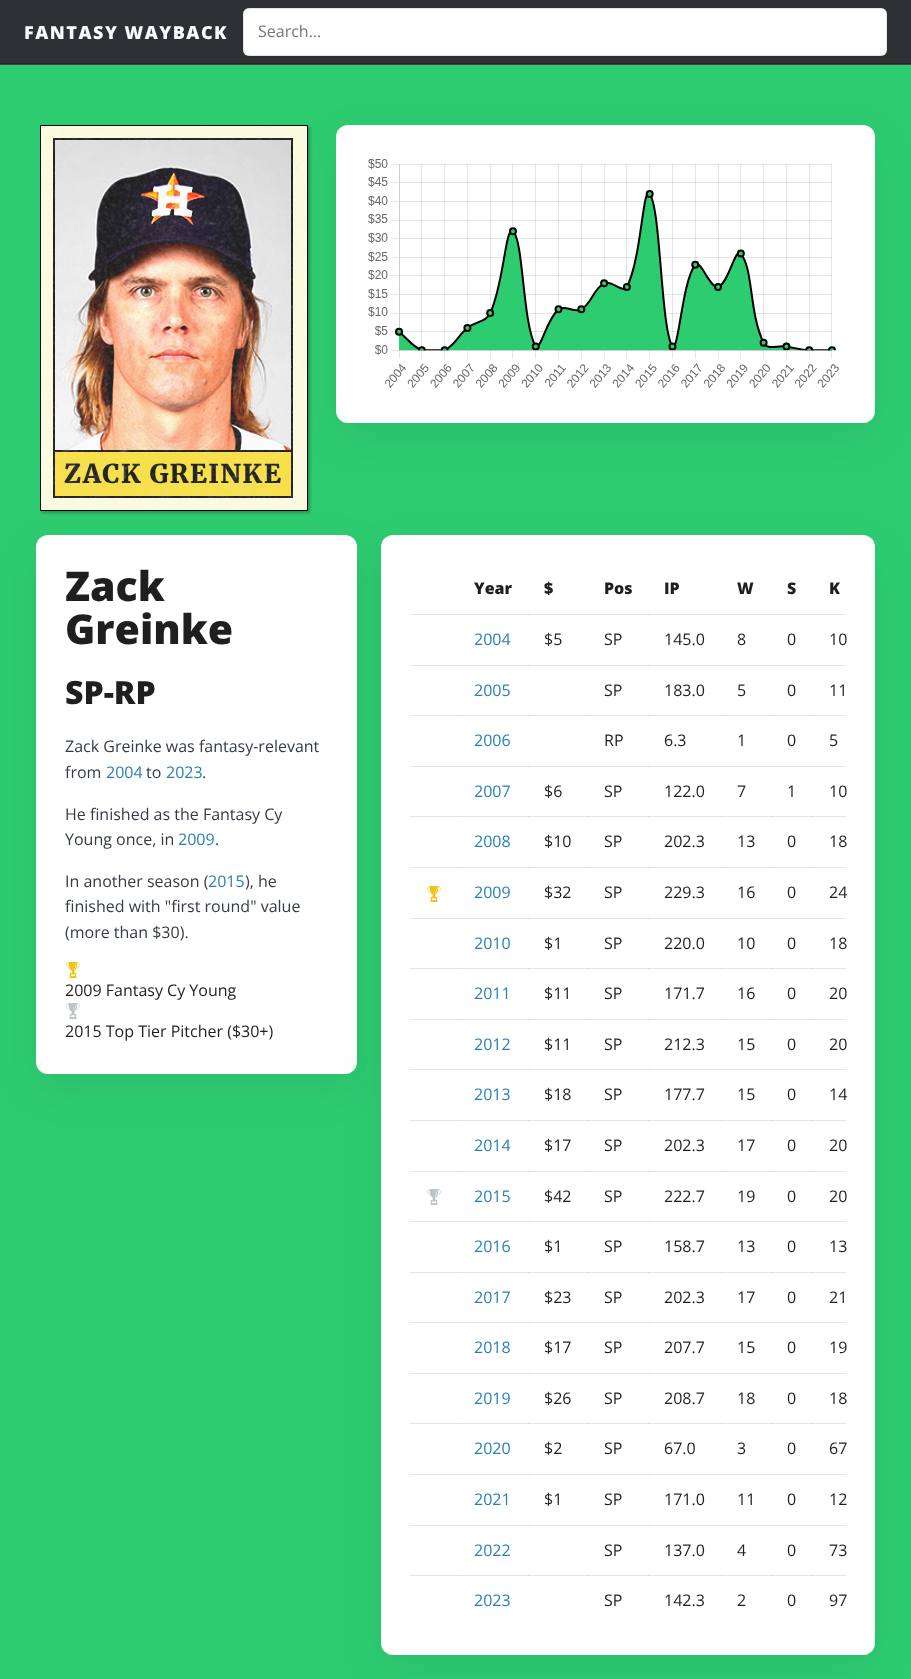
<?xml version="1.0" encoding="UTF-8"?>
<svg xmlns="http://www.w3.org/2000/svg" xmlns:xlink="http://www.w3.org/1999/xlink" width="911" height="1679">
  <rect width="100%" height="100%" fill="#2ecc71" />
  <rect width="911" height="63" fill="#2f3033" />
  <rect y="63" width="911" height="1" fill="#262629" />
  <rect y="64" width="911" height="1" fill="#404143" />
  <rect x="243" y="8" width="644" height="48" rx="6" fill="#ffffff" />
  <rect x="243.5" y="8.5" width="643" height="47" rx="5.5" fill="none" stroke="#21293c" stroke-opacity="0.12" />
  <rect x="42" y="127" width="268" height="386" fill="#0a0a0a" fill-opacity="0.3" filter="blur(1.5px)" />
  <rect x="336" y="140" width="539" height="298" rx="12" fill="#0f172a" fill-opacity="0.08" filter="blur(20px)" />
  <rect x="36" y="550" width="321" height="539" rx="12" fill="#0f172a" fill-opacity="0.08" filter="blur(20px)" />
  <rect x="40.5" y="125.5" width="267" height="385" fill="#ffffdf" stroke="#000000" />
  <rect x="54" y="139" width="238" height="358" fill="none" stroke="#000000" stroke-width="2" />
  <image x="55" y="140" width="236" height="310" xlink:href="image2.png" />
  <rect x="54" y="451" width="238" height="46" fill="#fcdf2c" stroke="#000000" stroke-width="2" />
  <rect x="336" y="125" width="539" height="298" rx="12" fill="#ffffff" />
  <image x="368" y="159" width="471" height="229" xlink:href="image3.png" />
  <rect x="36" y="535" width="321" height="539" rx="12" fill="#ffffff" />
  <image x="66" y="962" width="14" height="16" xlink:href="image4.png" />
  <image x="66" y="1003" width="14" height="16" xlink:href="image5.png" />
  <rect x="381" y="550" width="494" height="1120" rx="12" fill="#0f172a" fill-opacity="0.08" filter="blur(20px)" />
  <rect x="381" y="535" width="494" height="1120" rx="12" fill="#ffffff" />
  <rect x="410" y="614" width="436" height="1" fill="#e4e5e8" />
  <rect x="458" y="614" width="1" height="1" fill="#cdced3" />
  <rect x="528" y="614" width="1" height="1" fill="#cdced3" />
  <rect x="587" y="614" width="1" height="1" fill="#cdced3" />
  <rect x="648" y="614" width="1" height="1" fill="#cdced3" />
  <rect x="721" y="614" width="1" height="1" fill="#cdced3" />
  <rect x="771" y="614" width="1" height="1" fill="#cdced3" />
  <rect x="410" y="665" width="436" height="1" fill="#e4e5e8" />
  <rect x="458" y="665" width="1" height="1" fill="#cdced3" />
  <rect x="528" y="665" width="1" height="1" fill="#cdced3" />
  <rect x="587" y="665" width="1" height="1" fill="#cdced3" />
  <rect x="648" y="665" width="1" height="1" fill="#cdced3" />
  <rect x="721" y="665" width="1" height="1" fill="#cdced3" />
  <rect x="771" y="665" width="1" height="1" fill="#cdced3" />
  <rect x="410" y="715" width="436" height="1" fill="#e4e5e8" />
  <rect x="458" y="715" width="1" height="1" fill="#cdced3" />
  <rect x="528" y="715" width="1" height="1" fill="#cdced3" />
  <rect x="587" y="715" width="1" height="1" fill="#cdced3" />
  <rect x="648" y="715" width="1" height="1" fill="#cdced3" />
  <rect x="721" y="715" width="1" height="1" fill="#cdced3" />
  <rect x="771" y="715" width="1" height="1" fill="#cdced3" />
  <rect x="410" y="766" width="436" height="1" fill="#e4e5e8" />
  <rect x="458" y="766" width="1" height="1" fill="#cdced3" />
  <rect x="528" y="766" width="1" height="1" fill="#cdced3" />
  <rect x="587" y="766" width="1" height="1" fill="#cdced3" />
  <rect x="648" y="766" width="1" height="1" fill="#cdced3" />
  <rect x="721" y="766" width="1" height="1" fill="#cdced3" />
  <rect x="771" y="766" width="1" height="1" fill="#cdced3" />
  <rect x="410" y="816" width="436" height="1" fill="#e4e5e8" />
  <rect x="458" y="816" width="1" height="1" fill="#cdced3" />
  <rect x="528" y="816" width="1" height="1" fill="#cdced3" />
  <rect x="587" y="816" width="1" height="1" fill="#cdced3" />
  <rect x="648" y="816" width="1" height="1" fill="#cdced3" />
  <rect x="721" y="816" width="1" height="1" fill="#cdced3" />
  <rect x="771" y="816" width="1" height="1" fill="#cdced3" />
  <rect x="410" y="867" width="436" height="1" fill="#e4e5e8" />
  <rect x="458" y="867" width="1" height="1" fill="#cdced3" />
  <rect x="528" y="867" width="1" height="1" fill="#cdced3" />
  <rect x="587" y="867" width="1" height="1" fill="#cdced3" />
  <rect x="648" y="867" width="1" height="1" fill="#cdced3" />
  <rect x="721" y="867" width="1" height="1" fill="#cdced3" />
  <rect x="771" y="867" width="1" height="1" fill="#cdced3" />
  <rect x="410" y="918" width="436" height="1" fill="#e4e5e8" />
  <rect x="458" y="918" width="1" height="1" fill="#cdced3" />
  <rect x="528" y="918" width="1" height="1" fill="#cdced3" />
  <rect x="587" y="918" width="1" height="1" fill="#cdced3" />
  <rect x="648" y="918" width="1" height="1" fill="#cdced3" />
  <rect x="721" y="918" width="1" height="1" fill="#cdced3" />
  <rect x="771" y="918" width="1" height="1" fill="#cdced3" />
  <rect x="410" y="968" width="436" height="1" fill="#e4e5e8" />
  <rect x="458" y="968" width="1" height="1" fill="#cdced3" />
  <rect x="528" y="968" width="1" height="1" fill="#cdced3" />
  <rect x="587" y="968" width="1" height="1" fill="#cdced3" />
  <rect x="648" y="968" width="1" height="1" fill="#cdced3" />
  <rect x="721" y="968" width="1" height="1" fill="#cdced3" />
  <rect x="771" y="968" width="1" height="1" fill="#cdced3" />
  <rect x="410" y="1019" width="436" height="1" fill="#e4e5e8" />
  <rect x="458" y="1019" width="1" height="1" fill="#cdced3" />
  <rect x="528" y="1019" width="1" height="1" fill="#cdced3" />
  <rect x="587" y="1019" width="1" height="1" fill="#cdced3" />
  <rect x="648" y="1019" width="1" height="1" fill="#cdced3" />
  <rect x="721" y="1019" width="1" height="1" fill="#cdced3" />
  <rect x="771" y="1019" width="1" height="1" fill="#cdced3" />
  <rect x="410" y="1069" width="436" height="1" fill="#e4e5e8" />
  <rect x="458" y="1069" width="1" height="1" fill="#cdced3" />
  <rect x="528" y="1069" width="1" height="1" fill="#cdced3" />
  <rect x="587" y="1069" width="1" height="1" fill="#cdced3" />
  <rect x="648" y="1069" width="1" height="1" fill="#cdced3" />
  <rect x="721" y="1069" width="1" height="1" fill="#cdced3" />
  <rect x="771" y="1069" width="1" height="1" fill="#cdced3" />
  <rect x="410" y="1120" width="436" height="1" fill="#e4e5e8" />
  <rect x="458" y="1120" width="1" height="1" fill="#cdced3" />
  <rect x="528" y="1120" width="1" height="1" fill="#cdced3" />
  <rect x="587" y="1120" width="1" height="1" fill="#cdced3" />
  <rect x="648" y="1120" width="1" height="1" fill="#cdced3" />
  <rect x="721" y="1120" width="1" height="1" fill="#cdced3" />
  <rect x="771" y="1120" width="1" height="1" fill="#cdced3" />
  <rect x="410" y="1171" width="436" height="1" fill="#e4e5e8" />
  <rect x="458" y="1171" width="1" height="1" fill="#cdced3" />
  <rect x="528" y="1171" width="1" height="1" fill="#cdced3" />
  <rect x="587" y="1171" width="1" height="1" fill="#cdced3" />
  <rect x="648" y="1171" width="1" height="1" fill="#cdced3" />
  <rect x="721" y="1171" width="1" height="1" fill="#cdced3" />
  <rect x="771" y="1171" width="1" height="1" fill="#cdced3" />
  <rect x="410" y="1221" width="436" height="1" fill="#e4e5e8" />
  <rect x="458" y="1221" width="1" height="1" fill="#cdced3" />
  <rect x="528" y="1221" width="1" height="1" fill="#cdced3" />
  <rect x="587" y="1221" width="1" height="1" fill="#cdced3" />
  <rect x="648" y="1221" width="1" height="1" fill="#cdced3" />
  <rect x="721" y="1221" width="1" height="1" fill="#cdced3" />
  <rect x="771" y="1221" width="1" height="1" fill="#cdced3" />
  <rect x="410" y="1272" width="436" height="1" fill="#e4e5e8" />
  <rect x="458" y="1272" width="1" height="1" fill="#cdced3" />
  <rect x="528" y="1272" width="1" height="1" fill="#cdced3" />
  <rect x="587" y="1272" width="1" height="1" fill="#cdced3" />
  <rect x="648" y="1272" width="1" height="1" fill="#cdced3" />
  <rect x="721" y="1272" width="1" height="1" fill="#cdced3" />
  <rect x="771" y="1272" width="1" height="1" fill="#cdced3" />
  <rect x="410" y="1322" width="436" height="1" fill="#e4e5e8" />
  <rect x="458" y="1322" width="1" height="1" fill="#cdced3" />
  <rect x="528" y="1322" width="1" height="1" fill="#cdced3" />
  <rect x="587" y="1322" width="1" height="1" fill="#cdced3" />
  <rect x="648" y="1322" width="1" height="1" fill="#cdced3" />
  <rect x="721" y="1322" width="1" height="1" fill="#cdced3" />
  <rect x="771" y="1322" width="1" height="1" fill="#cdced3" />
  <rect x="410" y="1373" width="436" height="1" fill="#e4e5e8" />
  <rect x="458" y="1373" width="1" height="1" fill="#cdced3" />
  <rect x="528" y="1373" width="1" height="1" fill="#cdced3" />
  <rect x="587" y="1373" width="1" height="1" fill="#cdced3" />
  <rect x="648" y="1373" width="1" height="1" fill="#cdced3" />
  <rect x="721" y="1373" width="1" height="1" fill="#cdced3" />
  <rect x="771" y="1373" width="1" height="1" fill="#cdced3" />
  <rect x="410" y="1423" width="436" height="1" fill="#e4e5e8" />
  <rect x="458" y="1423" width="1" height="1" fill="#cdced3" />
  <rect x="528" y="1423" width="1" height="1" fill="#cdced3" />
  <rect x="587" y="1423" width="1" height="1" fill="#cdced3" />
  <rect x="648" y="1423" width="1" height="1" fill="#cdced3" />
  <rect x="721" y="1423" width="1" height="1" fill="#cdced3" />
  <rect x="771" y="1423" width="1" height="1" fill="#cdced3" />
  <rect x="410" y="1474" width="436" height="1" fill="#e4e5e8" />
  <rect x="458" y="1474" width="1" height="1" fill="#cdced3" />
  <rect x="528" y="1474" width="1" height="1" fill="#cdced3" />
  <rect x="587" y="1474" width="1" height="1" fill="#cdced3" />
  <rect x="648" y="1474" width="1" height="1" fill="#cdced3" />
  <rect x="721" y="1474" width="1" height="1" fill="#cdced3" />
  <rect x="771" y="1474" width="1" height="1" fill="#cdced3" />
  <rect x="410" y="1525" width="436" height="1" fill="#e4e5e8" />
  <rect x="458" y="1525" width="1" height="1" fill="#cdced3" />
  <rect x="528" y="1525" width="1" height="1" fill="#cdced3" />
  <rect x="587" y="1525" width="1" height="1" fill="#cdced3" />
  <rect x="648" y="1525" width="1" height="1" fill="#cdced3" />
  <rect x="721" y="1525" width="1" height="1" fill="#cdced3" />
  <rect x="771" y="1525" width="1" height="1" fill="#cdced3" />
  <rect x="410" y="1575" width="436" height="1" fill="#e4e5e8" />
  <rect x="458" y="1575" width="1" height="1" fill="#cdced3" />
  <rect x="528" y="1575" width="1" height="1" fill="#cdced3" />
  <rect x="587" y="1575" width="1" height="1" fill="#cdced3" />
  <rect x="648" y="1575" width="1" height="1" fill="#cdced3" />
  <rect x="721" y="1575" width="1" height="1" fill="#cdced3" />
  <rect x="771" y="1575" width="1" height="1" fill="#cdced3" />
  <rect x="812" y="614" width="1" height="1" fill="#cdced3" />
  <rect x="812" y="665" width="1" height="1" fill="#cdced3" />
  <rect x="812" y="715" width="1" height="1" fill="#cdced3" />
  <rect x="812" y="766" width="1" height="1" fill="#cdced3" />
  <rect x="812" y="816" width="1" height="1" fill="#cdced3" />
  <rect x="812" y="867" width="1" height="1" fill="#cdced3" />
  <image x="427" y="886" width="14" height="16" xlink:href="image4.png" />
  <rect x="812" y="918" width="1" height="1" fill="#cdced3" />
  <rect x="812" y="968" width="1" height="1" fill="#cdced3" />
  <rect x="812" y="1019" width="1" height="1" fill="#cdced3" />
  <rect x="812" y="1069" width="1" height="1" fill="#cdced3" />
  <rect x="812" y="1120" width="1" height="1" fill="#cdced3" />
  <rect x="812" y="1171" width="1" height="1" fill="#cdced3" />
  <image x="427" y="1189" width="14" height="16" xlink:href="image5.png" />
  <rect x="812" y="1221" width="1" height="1" fill="#cdced3" />
  <rect x="812" y="1272" width="1" height="1" fill="#cdced3" />
  <rect x="812" y="1322" width="1" height="1" fill="#cdced3" />
  <rect x="812" y="1373" width="1" height="1" fill="#cdced3" />
  <rect x="812" y="1423" width="1" height="1" fill="#cdced3" />
  <rect x="812" y="1474" width="1" height="1" fill="#cdced3" />
  <rect x="812" y="1525" width="1" height="1" fill="#cdced3" />
  <rect x="812" y="1575" width="1" height="1" fill="#cdced3" />
  <text x="24" y="39" style="font-family: Open Sans; font-size: 18px; font-weight: 800; letter-spacing: 1.5px; fill: #f8fafc">FANTASY WAYBACK</text>
  <text x="258" y="37" style="font-family: Open Sans; font-size: 16px; fill: #757575">Search...</text>
  <text x="64" y="483" style="font-family: Merriweather; font-size: 26px; font-weight: 300; letter-spacing: 1.25px; fill: #000000">ZACK GREINKE</text>
  <image x="41" y="126" width="266" height="384" xlink:href="image1.png" />
  <text x="65" y="601" style="font-family: Open Sans; font-size: 41px; font-weight: 800; fill: #1f1f1f">Zack</text>
  <text x="65" y="644" style="font-family: Open Sans; font-size: 41px; font-weight: 800; fill: #1f1f1f">Greinke</text>
  <text x="65" y="704" style="font-family: Open Sans; font-size: 32px; font-weight: 800; fill: #1f1f1f">SP-RP</text>
  <text x="65" y="752" style="font-family: Open Sans; font-size: 16px; fill: #353b47">Zack Greinke was fantasy-relevant</text>
  <text x="65" y="778" style="font-family: Open Sans; font-size: 16px; fill: #353b47">from</text>
  <text x="106" y="778" style="font-family: Open Sans; font-size: 16px; fill: #2980b9">2004</text>
  <text x="146" y="778" style="font-family: Open Sans; font-size: 16px; fill: #353b47">to</text>
  <text x="166" y="778" style="font-family: Open Sans; font-size: 16px; fill: #2980b9">2023</text>
  <text x="202" y="778" style="font-family: Open Sans; font-size: 16px; fill: #353b47">.</text>
  <text x="65" y="820" style="font-family: Open Sans; font-size: 16px; fill: #353b47">He finished as the Fantasy Cy</text>
  <text x="65" y="845" style="font-family: Open Sans; font-size: 16px; fill: #353b47">Young once, in</text>
  <text x="178" y="845" style="font-family: Open Sans; font-size: 16px; fill: #2980b9">2009</text>
  <text x="215" y="845" style="font-family: Open Sans; font-size: 16px; fill: #353b47">.</text>
  <text x="65" y="887" style="font-family: Open Sans; font-size: 16px; fill: #353b47">In another season (</text>
  <text x="208" y="887" style="font-family: Open Sans; font-size: 16px; fill: #2980b9">2015</text>
  <text x="245" y="887" style="font-family: Open Sans; font-size: 16px; fill: #353b47">), he</text>
  <text x="65" y="912" style="font-family: Open Sans; font-size: 16px; fill: #353b47">finished with "first round" value</text>
  <text x="65" y="938" style="font-family: Open Sans; font-size: 16px; fill: #353b47">(more than $30).</text>
  <text x="65" y="996" style="font-family: Open Sans; font-size: 16px; fill: #1f1f1f">2009 Fantasy Cy Young</text>
  <text x="65" y="1037" style="font-family: Open Sans; font-size: 16px; fill: #1f1f1f">2015 Top Tier Pitcher ($30+)</text>
  <text x="474" y="594" style="font-family: Open Sans; font-size: 16px; font-weight: 800; fill: #1f1f1f">Year</text>
  <text x="544" y="594" style="font-family: Open Sans; font-size: 16px; font-weight: 800; fill: #1f1f1f">$</text>
  <text x="604" y="594" style="font-family: Open Sans; font-size: 16px; font-weight: 800; fill: #1f1f1f">Pos</text>
  <text x="664" y="594" style="font-family: Open Sans; font-size: 16px; font-weight: 800; fill: #1f1f1f">IP</text>
  <text x="737" y="594" style="font-family: Open Sans; font-size: 16px; font-weight: 800; fill: #1f1f1f">W</text>
  <text x="787" y="594" style="font-family: Open Sans; font-size: 16px; font-weight: 800; fill: #1f1f1f">S</text>
  <text x="829" y="594" style="font-family: Open Sans; font-size: 16px; font-weight: 800; fill: #1f1f1f">K</text>
  <text x="474" y="645" style="font-family: Open Sans; font-size: 16px; fill: #2980b9">2004</text>
  <text x="544" y="645" style="font-family: Open Sans; font-size: 16px; fill: #1f1f1f">$5</text>
  <text x="604" y="645" style="font-family: Open Sans; font-size: 16px; fill: #1f1f1f">SP</text>
  <text x="664" y="645" style="font-family: Open Sans; font-size: 16px; fill: #1f1f1f">145.0</text>
  <text x="737" y="645" style="font-family: Open Sans; font-size: 16px; fill: #1f1f1f">8</text>
  <text x="787" y="645" style="font-family: Open Sans; font-size: 16px; fill: #1f1f1f">0</text>
  <text x="829" y="645" style="font-family: Open Sans; font-size: 16px; fill: #1f1f1f">10</text>
  <text x="474" y="696" style="font-family: Open Sans; font-size: 16px; fill: #2980b9">2005</text>
  <text x="604" y="696" style="font-family: Open Sans; font-size: 16px; fill: #1f1f1f">SP</text>
  <text x="664" y="696" style="font-family: Open Sans; font-size: 16px; fill: #1f1f1f">183.0</text>
  <text x="737" y="696" style="font-family: Open Sans; font-size: 16px; fill: #1f1f1f">5</text>
  <text x="787" y="696" style="font-family: Open Sans; font-size: 16px; fill: #1f1f1f">0</text>
  <text x="829" y="696" style="font-family: Open Sans; font-size: 16px; fill: #1f1f1f">11</text>
  <text x="474" y="746" style="font-family: Open Sans; font-size: 16px; fill: #2980b9">2006</text>
  <text x="604" y="746" style="font-family: Open Sans; font-size: 16px; fill: #1f1f1f">RP</text>
  <text x="664" y="746" style="font-family: Open Sans; font-size: 16px; fill: #1f1f1f">6.3</text>
  <text x="737" y="746" style="font-family: Open Sans; font-size: 16px; fill: #1f1f1f">1</text>
  <text x="787" y="746" style="font-family: Open Sans; font-size: 16px; fill: #1f1f1f">0</text>
  <text x="829" y="746" style="font-family: Open Sans; font-size: 16px; fill: #1f1f1f">5</text>
  <text x="474" y="797" style="font-family: Open Sans; font-size: 16px; fill: #2980b9">2007</text>
  <text x="544" y="797" style="font-family: Open Sans; font-size: 16px; fill: #1f1f1f">$6</text>
  <text x="604" y="797" style="font-family: Open Sans; font-size: 16px; fill: #1f1f1f">SP</text>
  <text x="664" y="797" style="font-family: Open Sans; font-size: 16px; fill: #1f1f1f">122.0</text>
  <text x="737" y="797" style="font-family: Open Sans; font-size: 16px; fill: #1f1f1f">7</text>
  <text x="787" y="797" style="font-family: Open Sans; font-size: 16px; fill: #1f1f1f">1</text>
  <text x="829" y="797" style="font-family: Open Sans; font-size: 16px; fill: #1f1f1f">10</text>
  <text x="474" y="847" style="font-family: Open Sans; font-size: 16px; fill: #2980b9">2008</text>
  <text x="544" y="847" style="font-family: Open Sans; font-size: 16px; fill: #1f1f1f">$10</text>
  <text x="604" y="847" style="font-family: Open Sans; font-size: 16px; fill: #1f1f1f">SP</text>
  <text x="664" y="847" style="font-family: Open Sans; font-size: 16px; fill: #1f1f1f">202.3</text>
  <text x="737" y="847" style="font-family: Open Sans; font-size: 16px; fill: #1f1f1f">13</text>
  <text x="787" y="847" style="font-family: Open Sans; font-size: 16px; fill: #1f1f1f">0</text>
  <text x="829" y="847" style="font-family: Open Sans; font-size: 16px; fill: #1f1f1f">18</text>
  <text x="474" y="898" style="font-family: Open Sans; font-size: 16px; fill: #2980b9">2009</text>
  <text x="544" y="898" style="font-family: Open Sans; font-size: 16px; fill: #1f1f1f">$32</text>
  <text x="604" y="898" style="font-family: Open Sans; font-size: 16px; fill: #1f1f1f">SP</text>
  <text x="664" y="898" style="font-family: Open Sans; font-size: 16px; fill: #1f1f1f">229.3</text>
  <text x="737" y="898" style="font-family: Open Sans; font-size: 16px; fill: #1f1f1f">16</text>
  <text x="787" y="898" style="font-family: Open Sans; font-size: 16px; fill: #1f1f1f">0</text>
  <text x="829" y="898" style="font-family: Open Sans; font-size: 16px; fill: #1f1f1f">24</text>
  <text x="474" y="949" style="font-family: Open Sans; font-size: 16px; fill: #2980b9">2010</text>
  <text x="544" y="949" style="font-family: Open Sans; font-size: 16px; fill: #1f1f1f">$1</text>
  <text x="604" y="949" style="font-family: Open Sans; font-size: 16px; fill: #1f1f1f">SP</text>
  <text x="664" y="949" style="font-family: Open Sans; font-size: 16px; fill: #1f1f1f">220.0</text>
  <text x="737" y="949" style="font-family: Open Sans; font-size: 16px; fill: #1f1f1f">10</text>
  <text x="787" y="949" style="font-family: Open Sans; font-size: 16px; fill: #1f1f1f">0</text>
  <text x="829" y="949" style="font-family: Open Sans; font-size: 16px; fill: #1f1f1f">18</text>
  <text x="474" y="999" style="font-family: Open Sans; font-size: 16px; fill: #2980b9">2011</text>
  <text x="544" y="999" style="font-family: Open Sans; font-size: 16px; fill: #1f1f1f">$11</text>
  <text x="604" y="999" style="font-family: Open Sans; font-size: 16px; fill: #1f1f1f">SP</text>
  <text x="664" y="999" style="font-family: Open Sans; font-size: 16px; fill: #1f1f1f">171.7</text>
  <text x="737" y="999" style="font-family: Open Sans; font-size: 16px; fill: #1f1f1f">16</text>
  <text x="787" y="999" style="font-family: Open Sans; font-size: 16px; fill: #1f1f1f">0</text>
  <text x="829" y="999" style="font-family: Open Sans; font-size: 16px; fill: #1f1f1f">20</text>
  <text x="474" y="1050" style="font-family: Open Sans; font-size: 16px; fill: #2980b9">2012</text>
  <text x="544" y="1050" style="font-family: Open Sans; font-size: 16px; fill: #1f1f1f">$11</text>
  <text x="604" y="1050" style="font-family: Open Sans; font-size: 16px; fill: #1f1f1f">SP</text>
  <text x="664" y="1050" style="font-family: Open Sans; font-size: 16px; fill: #1f1f1f">212.3</text>
  <text x="737" y="1050" style="font-family: Open Sans; font-size: 16px; fill: #1f1f1f">15</text>
  <text x="787" y="1050" style="font-family: Open Sans; font-size: 16px; fill: #1f1f1f">0</text>
  <text x="829" y="1050" style="font-family: Open Sans; font-size: 16px; fill: #1f1f1f">20</text>
  <text x="474" y="1100" style="font-family: Open Sans; font-size: 16px; fill: #2980b9">2013</text>
  <text x="544" y="1100" style="font-family: Open Sans; font-size: 16px; fill: #1f1f1f">$18</text>
  <text x="604" y="1100" style="font-family: Open Sans; font-size: 16px; fill: #1f1f1f">SP</text>
  <text x="664" y="1100" style="font-family: Open Sans; font-size: 16px; fill: #1f1f1f">177.7</text>
  <text x="737" y="1100" style="font-family: Open Sans; font-size: 16px; fill: #1f1f1f">15</text>
  <text x="787" y="1100" style="font-family: Open Sans; font-size: 16px; fill: #1f1f1f">0</text>
  <text x="829" y="1100" style="font-family: Open Sans; font-size: 16px; fill: #1f1f1f">14</text>
  <text x="474" y="1151" style="font-family: Open Sans; font-size: 16px; fill: #2980b9">2014</text>
  <text x="544" y="1151" style="font-family: Open Sans; font-size: 16px; fill: #1f1f1f">$17</text>
  <text x="604" y="1151" style="font-family: Open Sans; font-size: 16px; fill: #1f1f1f">SP</text>
  <text x="664" y="1151" style="font-family: Open Sans; font-size: 16px; fill: #1f1f1f">202.3</text>
  <text x="737" y="1151" style="font-family: Open Sans; font-size: 16px; fill: #1f1f1f">17</text>
  <text x="787" y="1151" style="font-family: Open Sans; font-size: 16px; fill: #1f1f1f">0</text>
  <text x="829" y="1151" style="font-family: Open Sans; font-size: 16px; fill: #1f1f1f">20</text>
  <text x="474" y="1202" style="font-family: Open Sans; font-size: 16px; fill: #2980b9">2015</text>
  <text x="544" y="1202" style="font-family: Open Sans; font-size: 16px; fill: #1f1f1f">$42</text>
  <text x="604" y="1202" style="font-family: Open Sans; font-size: 16px; fill: #1f1f1f">SP</text>
  <text x="664" y="1202" style="font-family: Open Sans; font-size: 16px; fill: #1f1f1f">222.7</text>
  <text x="737" y="1202" style="font-family: Open Sans; font-size: 16px; fill: #1f1f1f">19</text>
  <text x="787" y="1202" style="font-family: Open Sans; font-size: 16px; fill: #1f1f1f">0</text>
  <text x="829" y="1202" style="font-family: Open Sans; font-size: 16px; fill: #1f1f1f">20</text>
  <text x="474" y="1252" style="font-family: Open Sans; font-size: 16px; fill: #2980b9">2016</text>
  <text x="544" y="1252" style="font-family: Open Sans; font-size: 16px; fill: #1f1f1f">$1</text>
  <text x="604" y="1252" style="font-family: Open Sans; font-size: 16px; fill: #1f1f1f">SP</text>
  <text x="664" y="1252" style="font-family: Open Sans; font-size: 16px; fill: #1f1f1f">158.7</text>
  <text x="737" y="1252" style="font-family: Open Sans; font-size: 16px; fill: #1f1f1f">13</text>
  <text x="787" y="1252" style="font-family: Open Sans; font-size: 16px; fill: #1f1f1f">0</text>
  <text x="829" y="1252" style="font-family: Open Sans; font-size: 16px; fill: #1f1f1f">13</text>
  <text x="474" y="1303" style="font-family: Open Sans; font-size: 16px; fill: #2980b9">2017</text>
  <text x="544" y="1303" style="font-family: Open Sans; font-size: 16px; fill: #1f1f1f">$23</text>
  <text x="604" y="1303" style="font-family: Open Sans; font-size: 16px; fill: #1f1f1f">SP</text>
  <text x="664" y="1303" style="font-family: Open Sans; font-size: 16px; fill: #1f1f1f">202.3</text>
  <text x="737" y="1303" style="font-family: Open Sans; font-size: 16px; fill: #1f1f1f">17</text>
  <text x="787" y="1303" style="font-family: Open Sans; font-size: 16px; fill: #1f1f1f">0</text>
  <text x="829" y="1303" style="font-family: Open Sans; font-size: 16px; fill: #1f1f1f">21</text>
  <text x="474" y="1353" style="font-family: Open Sans; font-size: 16px; fill: #2980b9">2018</text>
  <text x="544" y="1353" style="font-family: Open Sans; font-size: 16px; fill: #1f1f1f">$17</text>
  <text x="604" y="1353" style="font-family: Open Sans; font-size: 16px; fill: #1f1f1f">SP</text>
  <text x="664" y="1353" style="font-family: Open Sans; font-size: 16px; fill: #1f1f1f">207.7</text>
  <text x="737" y="1353" style="font-family: Open Sans; font-size: 16px; fill: #1f1f1f">15</text>
  <text x="787" y="1353" style="font-family: Open Sans; font-size: 16px; fill: #1f1f1f">0</text>
  <text x="829" y="1353" style="font-family: Open Sans; font-size: 16px; fill: #1f1f1f">19</text>
  <text x="474" y="1404" style="font-family: Open Sans; font-size: 16px; fill: #2980b9">2019</text>
  <text x="544" y="1404" style="font-family: Open Sans; font-size: 16px; fill: #1f1f1f">$26</text>
  <text x="604" y="1404" style="font-family: Open Sans; font-size: 16px; fill: #1f1f1f">SP</text>
  <text x="664" y="1404" style="font-family: Open Sans; font-size: 16px; fill: #1f1f1f">208.7</text>
  <text x="737" y="1404" style="font-family: Open Sans; font-size: 16px; fill: #1f1f1f">18</text>
  <text x="787" y="1404" style="font-family: Open Sans; font-size: 16px; fill: #1f1f1f">0</text>
  <text x="829" y="1404" style="font-family: Open Sans; font-size: 16px; fill: #1f1f1f">18</text>
  <text x="474" y="1454" style="font-family: Open Sans; font-size: 16px; fill: #2980b9">2020</text>
  <text x="544" y="1454" style="font-family: Open Sans; font-size: 16px; fill: #1f1f1f">$2</text>
  <text x="604" y="1454" style="font-family: Open Sans; font-size: 16px; fill: #1f1f1f">SP</text>
  <text x="664" y="1454" style="font-family: Open Sans; font-size: 16px; fill: #1f1f1f">67.0</text>
  <text x="737" y="1454" style="font-family: Open Sans; font-size: 16px; fill: #1f1f1f">3</text>
  <text x="787" y="1454" style="font-family: Open Sans; font-size: 16px; fill: #1f1f1f">0</text>
  <text x="829" y="1454" style="font-family: Open Sans; font-size: 16px; fill: #1f1f1f">67</text>
  <text x="474" y="1505" style="font-family: Open Sans; font-size: 16px; fill: #2980b9">2021</text>
  <text x="544" y="1505" style="font-family: Open Sans; font-size: 16px; fill: #1f1f1f">$1</text>
  <text x="604" y="1505" style="font-family: Open Sans; font-size: 16px; fill: #1f1f1f">SP</text>
  <text x="664" y="1505" style="font-family: Open Sans; font-size: 16px; fill: #1f1f1f">171.0</text>
  <text x="737" y="1505" style="font-family: Open Sans; font-size: 16px; fill: #1f1f1f">11</text>
  <text x="787" y="1505" style="font-family: Open Sans; font-size: 16px; fill: #1f1f1f">0</text>
  <text x="829" y="1505" style="font-family: Open Sans; font-size: 16px; fill: #1f1f1f">12</text>
  <text x="474" y="1556" style="font-family: Open Sans; font-size: 16px; fill: #2980b9">2022</text>
  <text x="604" y="1556" style="font-family: Open Sans; font-size: 16px; fill: #1f1f1f">SP</text>
  <text x="664" y="1556" style="font-family: Open Sans; font-size: 16px; fill: #1f1f1f">137.0</text>
  <text x="737" y="1556" style="font-family: Open Sans; font-size: 16px; fill: #1f1f1f">4</text>
  <text x="787" y="1556" style="font-family: Open Sans; font-size: 16px; fill: #1f1f1f">0</text>
  <text x="829" y="1556" style="font-family: Open Sans; font-size: 16px; fill: #1f1f1f">73</text>
  <text x="474" y="1606" style="font-family: Open Sans; font-size: 16px; fill: #2980b9">2023</text>
  <text x="604" y="1606" style="font-family: Open Sans; font-size: 16px; fill: #1f1f1f">SP</text>
  <text x="664" y="1606" style="font-family: Open Sans; font-size: 16px; fill: #1f1f1f">142.3</text>
  <text x="737" y="1606" style="font-family: Open Sans; font-size: 16px; fill: #1f1f1f">2</text>
  <text x="787" y="1606" style="font-family: Open Sans; font-size: 16px; fill: #1f1f1f">0</text>
  <text x="829" y="1606" style="font-family: Open Sans; font-size: 16px; fill: #1f1f1f">97</text>
</svg>
